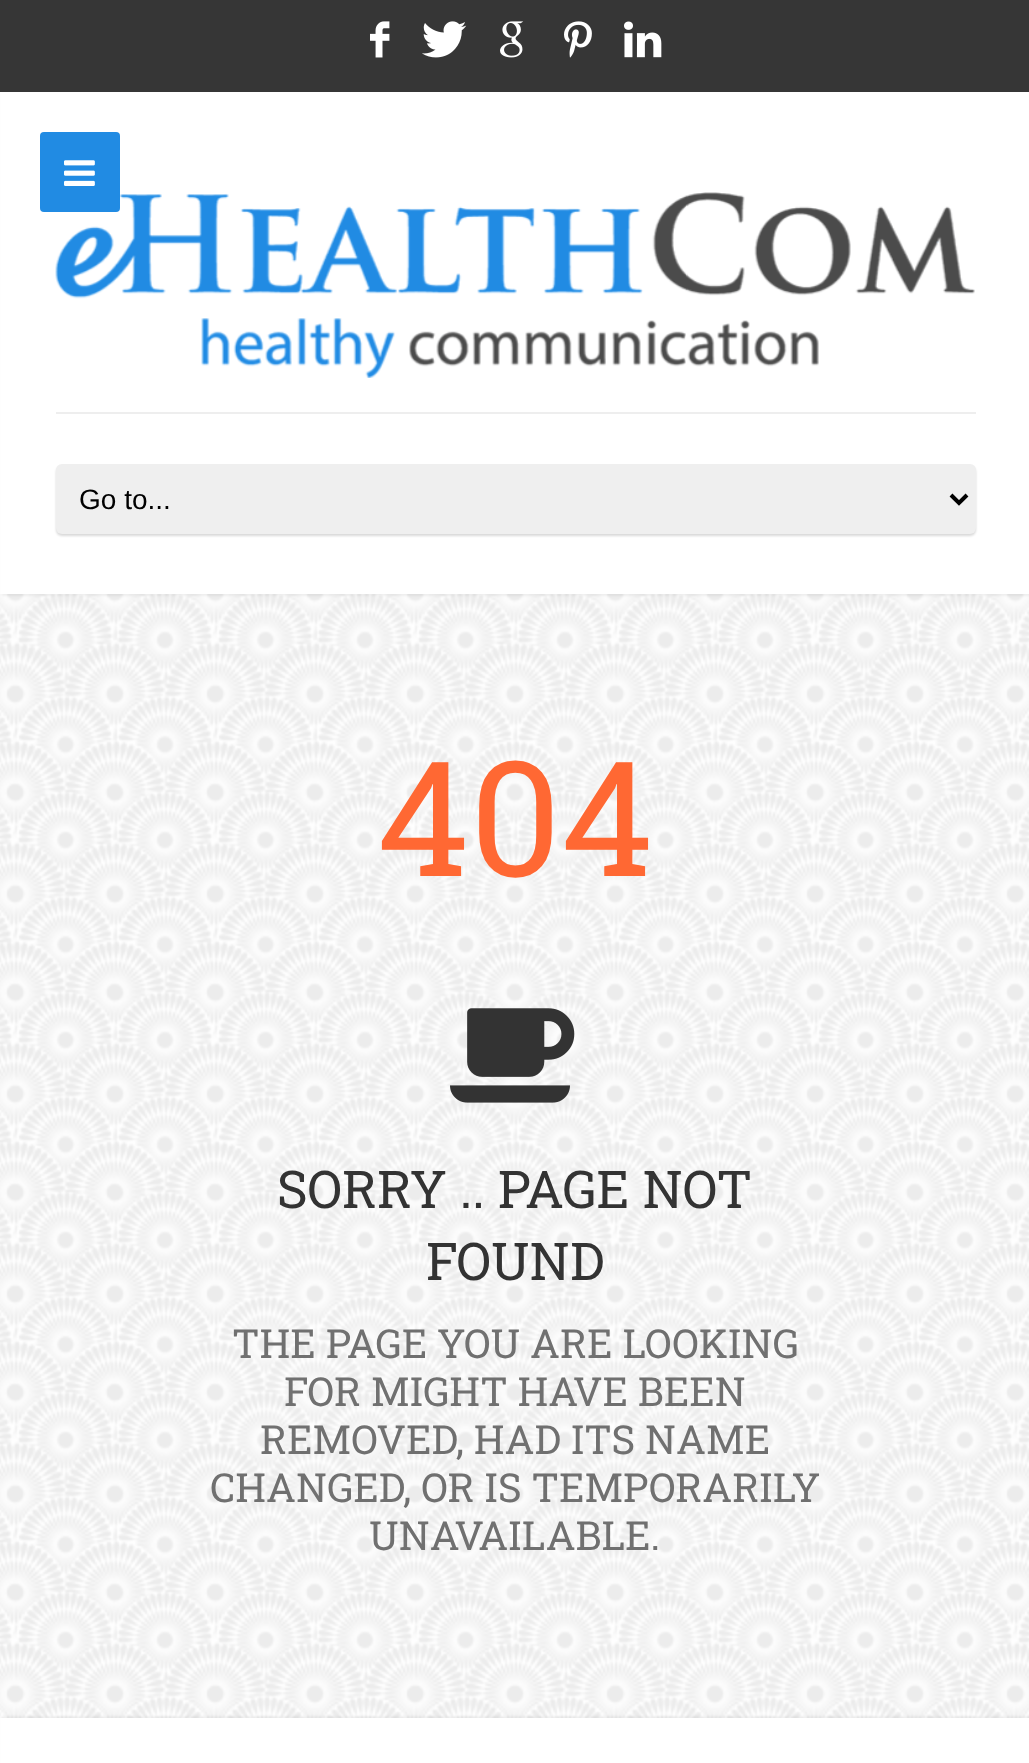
<?xml version="1.0" encoding="UTF-8"?>
<svg xmlns="http://www.w3.org/2000/svg" xmlns:xlink="http://www.w3.org/1999/xlink" width="1029" height="1763">
  <rect width="100%" height="100%" fill="#ffffff" />
  <image x="0" y="594" width="1029" height="1124" xlink:href="image1.png" />
  <rect width="1029" height="92" fill="#363636" />
  <image x="370" y="21" width="20" height="37" xlink:href="image2.png" />
  <image x="422" y="21" width="45" height="37" xlink:href="image3.png" />
  <image x="500" y="21" width="24" height="37" xlink:href="image4.png" />
  <image x="564" y="21" width="28" height="37" xlink:href="image5.png" />
  <image x="624" y="21" width="38" height="37" xlink:href="image6.png" />
  <rect x="2" y="94" width="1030" height="502" fill="#000000" fill-opacity="0.05" filter="blur(1px)" />
  <rect x="1" y="93" width="1028" height="501" fill="#ffffff" />
  <image x="55" y="192" width="920" height="186" xlink:href="image8.png" />
  <rect x="40" y="132" width="80" height="80" rx="4" fill="#218be3" />
  <image x="64" y="160" width="31" height="26" xlink:href="image7.png" />
  <rect x="56" y="412" width="920" height="2" fill="#eeeeee" />
  <rect x="56" y="466" width="920" height="70" rx="6" fill="#000000" fill-opacity="0.15" filter="blur(1px)" />
  <rect x="56" y="464" width="920" height="70" rx="6" fill="#efefef" />
  <path d="M 951 495 l 8 8 l 8 -8" fill="none" stroke="#000000" stroke-width="4" />
  <image x="450" y="1008" width="125" height="95" xlink:href="image9.png" />
  <rect x="2" y="1716" width="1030" height="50" fill="#000000" fill-opacity="0.05" filter="blur(1px)" />
  <rect x="1" y="1718" width="1028" height="45" fill="#ffffff" />
  <text x="79" y="509" style="font-family: Liberation Sans; font-size: 28px; fill: #000000">Go to...</text>
  <text x="377" y="876" style="font-family: Roboto Slab; font-size: 160px; fill: #ff6833">404</text>
  <text x="277" y="1208" style="font-family: Roboto Slab; font-size: 52px; fill: #333333">SORRY .. PAGE NOT</text>
  <text x="426" y="1280" style="font-family: Roboto Slab; font-size: 52px; fill: #333333">FOUND</text>
  <text x="232" y="1358" style="font-family: Roboto Slab; font-size: 40px; fill: #707070">THE PAGE YOU ARE LOOKING</text>
  <text x="284" y="1406" style="font-family: Roboto Slab; font-size: 40px; fill: #707070">FOR MIGHT HAVE BEEN</text>
  <text x="260" y="1454" style="font-family: Roboto Slab; font-size: 40px; fill: #707070">REMOVED, HAD ITS NAME</text>
  <text x="210" y="1502" style="font-family: Roboto Slab; font-size: 40px; fill: #707070">CHANGED, OR IS TEMPORARILY</text>
  <text x="369" y="1550" style="font-family: Roboto Slab; font-size: 40px; fill: #707070">UNAVAILABLE.</text>
</svg>
